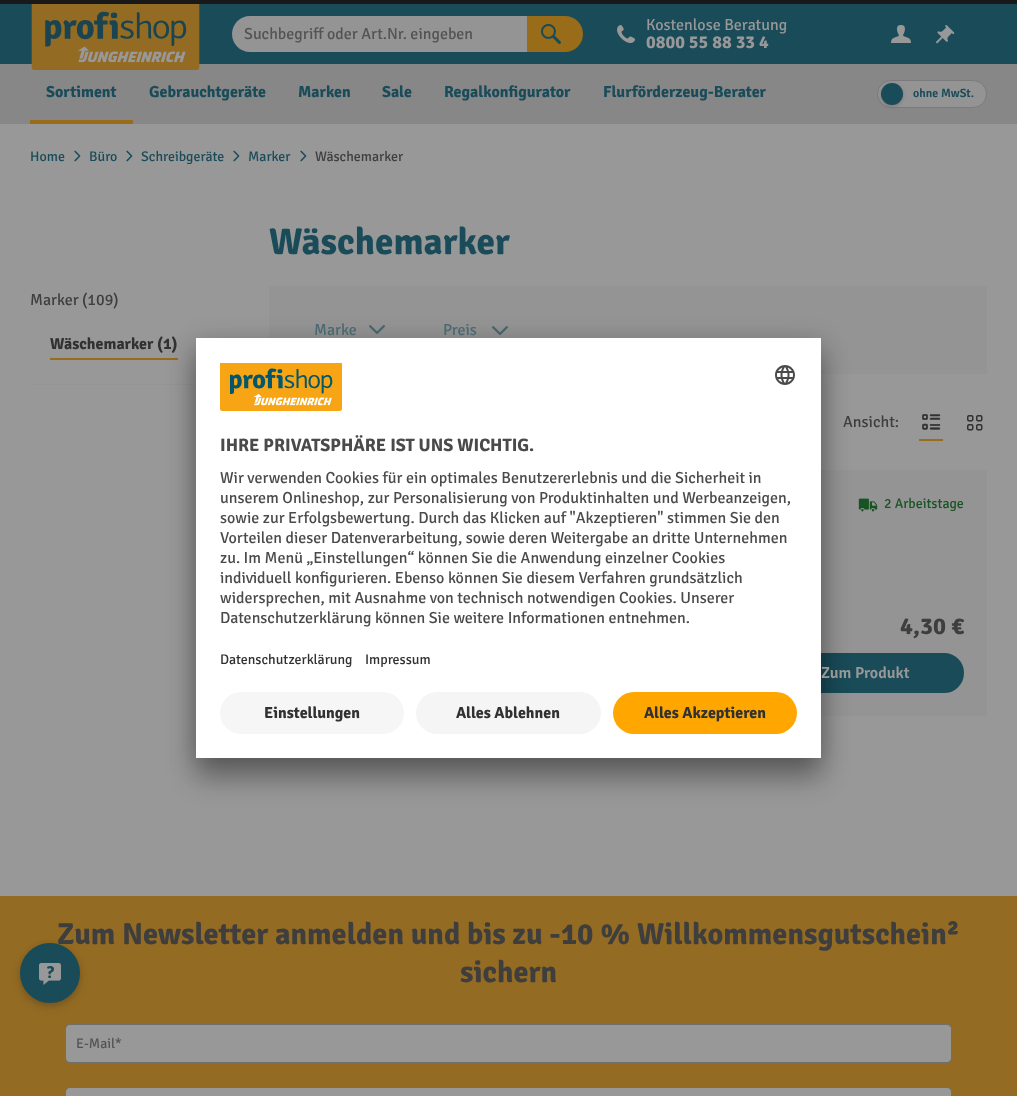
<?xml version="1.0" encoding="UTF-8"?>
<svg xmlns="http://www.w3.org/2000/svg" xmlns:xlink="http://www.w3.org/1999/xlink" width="1017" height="1096">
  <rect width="100%" height="100%" fill="#989898" />
  <rect width="1017" height="4" fill="#191919" />
  <rect y="4" width="1017" height="60" fill="#194b59" />
  <rect y="64" width="1017" height="60" fill="#878787" />
  <image x="31" y="4" width="169" height="66" xlink:href="image1.png" />
  <path d="M 250 16 h 277 v 36 h -277 c -10 0 -18 -8 -18 -18 c 0 -10 8 -18 18 -18 z" fill="#949494" />
  <path d="M 527 16 h 38 c 10 0 18 8 18 18 c 0 10 -8 18 -18 18 h -38 z" fill="#986c19" />
  <image x="541" y="24" width="20" height="20" xlink:href="image2.png" />
  <image x="617" y="25" width="18" height="18" xlink:href="image3.png" />
  <image x="891" y="25" width="20" height="18" xlink:href="image4.png" />
  <image x="936" y="25" width="19" height="19" xlink:href="image5.png" />
  <rect x="30" y="120" width="103" height="4" fill="#986c19" />
  <rect x="877.5" y="80.5" width="109" height="27" rx="13.5" fill="#949494" stroke="#7b7b7b" />
  <rect x="881" y="84" width="22" height="22" rx="11" fill="#191919" fill-opacity="0.1" filter="blur(2px)" />
  <rect x="881" y="84" width="22" height="22" rx="11" fill="#191919" fill-opacity="0.15" filter="blur(1px)" />
  <circle cx="892" cy="94" r="11" fill="#194b59" />
  <image x="74" y="150" width="7" height="12" xlink:href="image6.png" />
  <image x="126" y="150" width="7" height="12" xlink:href="image6.png" />
  <image x="233" y="150" width="7" height="12" xlink:href="image6.png" />
  <image x="300" y="150" width="7" height="12" xlink:href="image6.png" />
  <rect x="30" y="384" width="166" height="1" fill="#949494" />
  <rect x="50" y="358" width="128" height="2" fill="#986c19" />
  <rect x="271" y="288" width="714" height="84" fill="none" stroke="#949494" stroke-width="4" />
  <rect x="273" y="290" width="710" height="80" fill="#949494" />
  <image x="369" y="325" width="16" height="9" xlink:href="image7.png" />
  <image x="492" y="326" width="16" height="9" xlink:href="image7.png" />
  <rect x="919" y="439" width="24" height="2" fill="#986c19" />
  <image x="922" y="414" width="19" height="16" xlink:href="image8.png" />
  <image x="967" y="415" width="16" height="16" xlink:href="image9.png" />
  <rect x="270.5" y="471.5" width="715" height="243" fill="none" stroke="#949494" stroke-width="3" />
  <rect x="821" y="473" width="163" height="240" fill="#949494" />
  <image x="858" y="498" width="20" height="14" xlink:href="image10.png" />
  <rect x="768" y="654" width="195" height="38" rx="19" fill="#194b59" stroke="#194b59" stroke-width="2" />
  <rect x="196" y="358" width="625" height="420" fill="#000000" fill-opacity="0.3" filter="blur(14px)" />
  <rect x="196" y="343" width="625" height="420" fill="#000000" fill-opacity="0.22" filter="blur(13px)" />
  <rect x="196" y="338" width="625" height="420" fill="#ffffff" />
  <image x="220" y="363" width="122" height="48" xlink:href="image11.png" />
  <image x="775" y="365" width="20" height="20" xlink:href="image12.png" />
  <rect x="220" y="692" width="184" height="42" rx="21" fill="#f6f6f6" />
  <rect x="416" y="692" width="185" height="42" rx="21" fill="#f5f5f5" />
  <rect x="613" y="692" width="184" height="42" rx="21" fill="#ffa700" />
  <rect y="896" width="1017" height="200" fill="#946b23" />
  <rect x="20" y="944" width="60" height="60" rx="30" fill="#191919" fill-opacity="0.1" filter="blur(2px)" />
  <rect x="20" y="947" width="60" height="60" rx="30" fill="#191919" fill-opacity="0.2" filter="blur(4px)" />
  <rect x="65.5" y="1024.5" width="886" height="38" rx="4.5" fill="#989898" stroke="#706f6d" />
  <rect x="65.5" y="1087.5" width="886" height="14" rx="4.5" fill="#989898" stroke="#706f6d" />
  <text x="244" y="39" style="font-family: Signika; font-size: 16px; font-weight: 300; fill: #535353">Suchbegriff oder Art.Nr. eingeben</text>
  <text x="646" y="30" style="font-family: Signika; font-size: 16px; font-weight: 300; fill: #989898">Kostenlose Beratung</text>
  <text x="646" y="48" style="font-family: Signika; font-size: 18px; font-weight: bold; fill: #989898">0800 55 88 33 4</text>
  <text x="46" y="97" style="font-family: Signika; font-size: 16px; font-weight: bold; fill: #194b59">Sortiment</text>
  <text x="149" y="97" style="font-family: Signika; font-size: 16px; font-weight: bold; fill: #194b59">Gebrauchtgeräte</text>
  <text x="298" y="97" style="font-family: Signika; font-size: 16px; font-weight: bold; fill: #194b59">Marken</text>
  <text x="382" y="97" style="font-family: Signika; font-size: 16px; font-weight: bold; fill: #194b59">Sale</text>
  <text x="444" y="97" style="font-family: Signika; font-size: 16px; font-weight: bold; fill: #194b59">Regalkonfigurator</text>
  <text x="603" y="97" style="font-family: Signika; font-size: 16px; font-weight: bold; fill: #194b59">Flurförderzeug-Berater</text>
  <text x="913" y="97" style="font-family: Signika; font-size: 12px; font-weight: 600; fill: #194b59">ohne MwSt.</text>
  <text x="30" y="161" style="font-family: Signika; font-size: 14px; font-weight: 300; fill: #194b59">Home</text>
  <text x="89" y="161" style="font-family: Signika; font-size: 14px; font-weight: 300; fill: #194b59">Büro</text>
  <text x="141" y="161" style="font-family: Signika; font-size: 14px; font-weight: 300; fill: #194b59">Schreibgeräte</text>
  <text x="248" y="161" style="font-family: Signika; font-size: 14px; font-weight: 300; fill: #194b59">Marker</text>
  <text x="315" y="161" style="font-family: Signika; font-size: 14px; font-weight: 300; fill: #3e3e3e">Wäschemarker</text>
  <text x="30" y="305" style="font-family: Signika; font-size: 16px; font-weight: 300; fill: #3e3e3e">Marker (109)</text>
  <text x="50" y="349" style="font-family: Signika; font-size: 16px; font-weight: bold; fill: #313131">Wäschemarker (1)</text>
  <text x="269" y="254" style="font-family: Signika; font-size: 37.25px; font-weight: bold; fill: #194b59">Wäschemarker</text>
  <text x="314" y="335" style="font-family: Signika; font-size: 16px; font-weight: 300; fill: #4a6870">Marke</text>
  <text x="443" y="335" style="font-family: Signika; font-size: 16px; font-weight: 300; fill: #4a6870">Preis</text>
  <text x="843" y="427" style="font-family: Signika; font-size: 16px; font-weight: 300; fill: #3e3e3e">Ansicht:</text>
  <text x="884" y="508" style="font-family: Signika; font-size: 14px; font-weight: 300; fill: #195423">2 Arbeitstage</text>
  <text x="900" y="634" style="font-family: Signika; font-size: 24px; font-weight: bold; fill: #3e3e3e">4,30 €</text>
  <text x="821" y="678" style="font-family: Signika; font-size: 16px; font-weight: 600; fill: #989898">Zum Produkt</text>
  <text x="220" y="451" style="font-family: Signika; font-size: 18px; font-weight: bold; fill: #4a4a4a">IHRE PRIVATSPHÄRE IST UNS WICHTIG.</text>
  <text x="220" y="483" style="font-family: Signika; font-size: 16px; font-weight: 300; fill: #4a4a4a">Wir verwenden Cookies für ein optimales Benutzererlebnis und die Sicherheit in</text>
  <text x="220" y="503" style="font-family: Signika; font-size: 16px; font-weight: 300; fill: #4a4a4a">unserem Onlineshop, zur Personalisierung von Produktinhalten und Werbeanzeigen,</text>
  <text x="220" y="523" style="font-family: Signika; font-size: 16px; font-weight: 300; fill: #4a4a4a">sowie zur Erfolgsbewertung. Durch das Klicken auf "Akzeptieren" stimmen Sie den</text>
  <text x="220" y="543" style="font-family: Signika; font-size: 16px; font-weight: 300; fill: #4a4a4a">Vorteilen dieser Datenverarbeitung, sowie deren Weitergabe an dritte Unternehmen</text>
  <text x="220" y="563" style="font-family: Signika; font-size: 16px; font-weight: 300; fill: #4a4a4a">zu. Im Menü „Einstellungen“ können Sie die Anwendung einzelner Cookies</text>
  <text x="220" y="583" style="font-family: Signika; font-size: 16px; font-weight: 300; fill: #4a4a4a">individuell konfigurieren. Ebenso können Sie diesem Verfahren grundsätzlich</text>
  <text x="220" y="603" style="font-family: Signika; font-size: 16px; font-weight: 300; fill: #4a4a4a">widersprechen, mit Ausnahme von technisch notwendigen Cookies. Unserer</text>
  <text x="220" y="623" style="font-family: Signika; font-size: 16px; font-weight: 300; fill: #4a4a4a">Datenschutzerklärung können Sie weitere Informationen entnehmen.</text>
  <text x="220" y="664" style="font-family: Signika; font-size: 14px; font-weight: 300; fill: #313131">Datenschutzerklärung</text>
  <text x="365" y="664" style="font-family: Signika; font-size: 14px; font-weight: 300; fill: #313131">Impressum</text>
  <text x="264" y="718" style="font-family: Signika; font-size: 16px; font-weight: bold; fill: #313131">Einstellungen</text>
  <text x="456" y="718" style="font-family: Signika; font-size: 16px; font-weight: bold; fill: #313131">Alles Ablehnen</text>
  <text x="644" y="718" style="font-family: Signika; font-size: 16px; font-weight: bold; fill: #313131">Alles Akzeptieren</text>
  <text x="57" y="944" style="font-family: Signika; font-size: 30.35px; font-weight: bold; fill: #3e3e3e">Zum Newsletter anmelden und bis zu -10 % Willkommensgutschein²</text>
  <circle cx="50" cy="973" r="29" fill="#194b59" stroke="#194b59" stroke-width="2" />
  <image x="39" y="963" width="22" height="22" xlink:href="image13.png" />
  <text x="460" y="982" style="font-family: Signika; font-size: 30.35px; font-weight: bold; fill: #3e3e3e">sichern</text>
  <text x="76" y="1048" style="font-family: Signika; font-size: 14px; font-weight: 300; fill: #535353">E-Mail*</text>
</svg>
